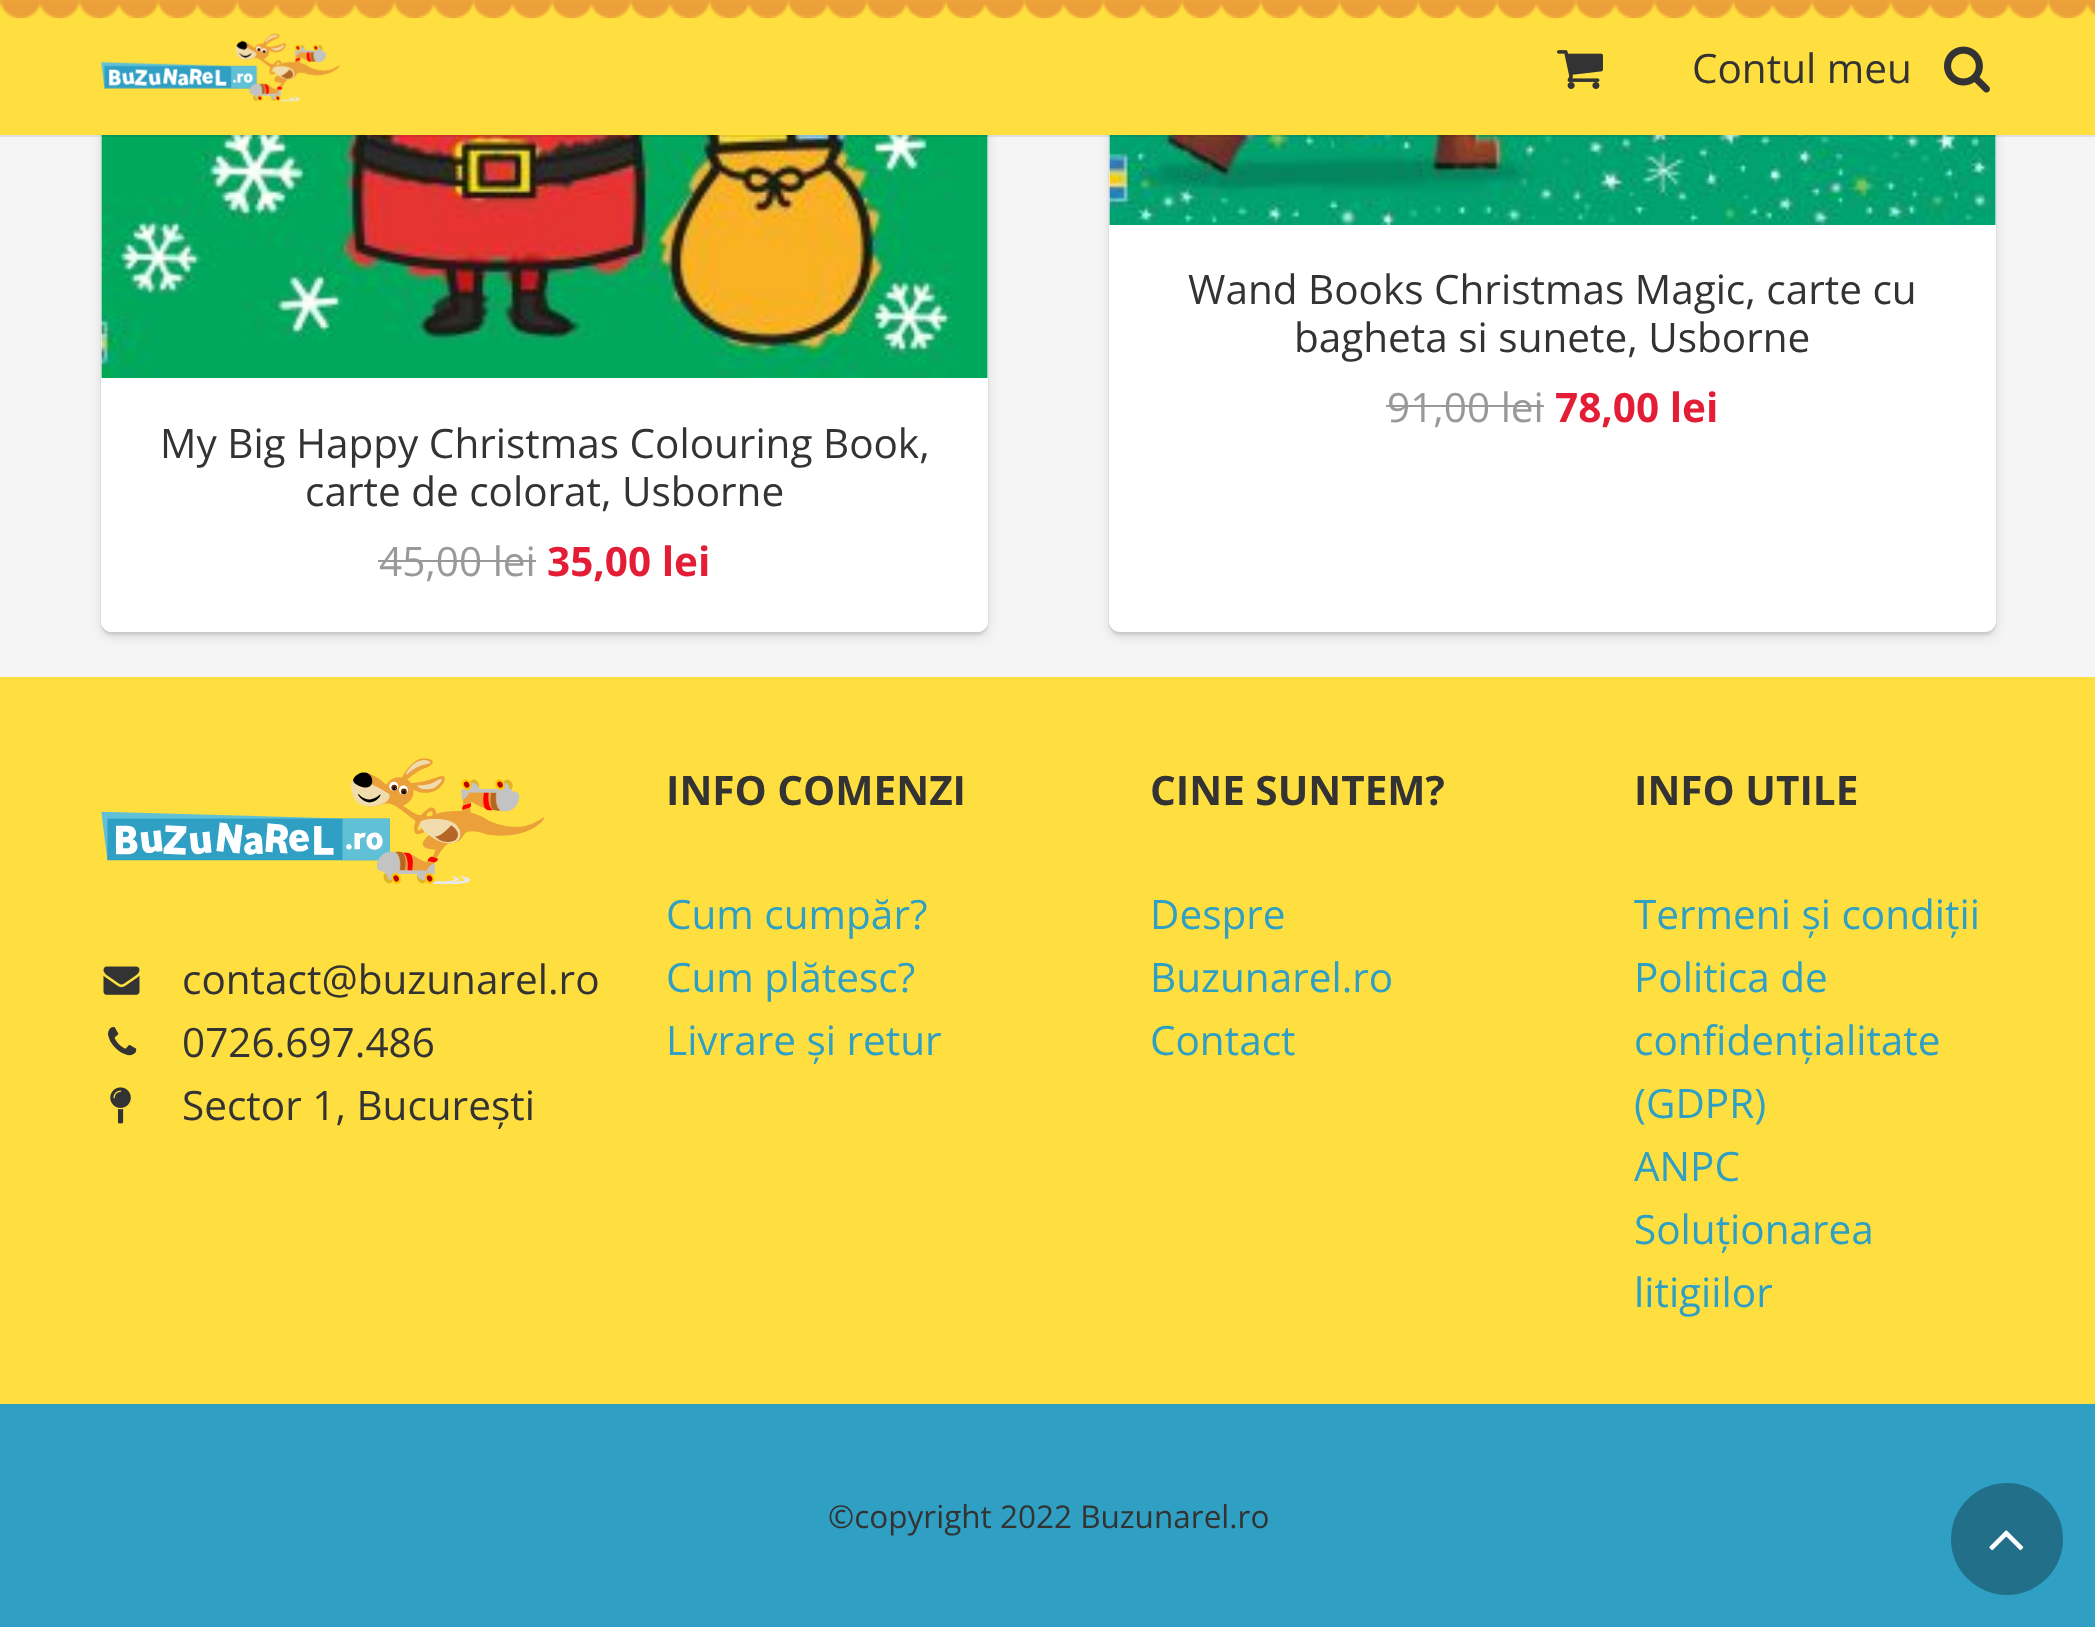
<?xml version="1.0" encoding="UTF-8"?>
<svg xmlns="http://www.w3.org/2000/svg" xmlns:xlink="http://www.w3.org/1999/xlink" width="2095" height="1627">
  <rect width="100%" height="100%" fill="#f5f5f5" />
  <rect x="1109" y="-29" width="887" height="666" rx="11" fill="#000000" fill-opacity="0.1" filter="blur(6px)" />
  <rect x="1109" y="-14" width="887" height="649" rx="11" fill="#000000" fill-opacity="0.1" filter="blur(1px)" />
  <rect x="1109" y="-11" width="887" height="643" rx="11" fill="#ffffff" />
  <image x="1109" y="135" width="887" height="90" xlink:href="image5.png" />
  <rect x="101" y="-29" width="887" height="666" rx="11" fill="#000000" fill-opacity="0.1" filter="blur(6px)" />
  <rect x="101" y="-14" width="887" height="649" rx="11" fill="#000000" fill-opacity="0.1" filter="blur(1px)" />
  <rect x="101" y="-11" width="887" height="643" rx="11" fill="#ffffff" />
  <image x="101" y="135" width="887" height="243" xlink:href="image6.png" />
  <rect y="135" width="2095" height="2" fill="#000000" fill-opacity="0.08" />
  <rect width="2095" height="135" fill="#ffdf3f" />
  <image x="0" y="0" width="2095" height="18" xlink:href="image1.png" />
  <image x="101" y="33" width="239" height="69" xlink:href="image2.png" />
  <image x="1557" y="50" width="46" height="39" xlink:href="image3.png" />
  <image x="1944" y="46" width="46" height="47" xlink:href="image4.png" />
  <rect x="1386" y="405" width="158" height="2" fill="#999999" />
  <path d="M 101 378 h 887 v 243 c 0 6 -5 11 -11 11 h -865 c -6 0 -11 -5 -11 -11 z" fill="#ffffff" />
  <rect x="378" y="560" width="158" height="2" fill="#999999" />
  <rect y="677" width="2095" height="727" fill="#ffdf3f" />
  <image x="101" y="758" width="443" height="126" xlink:href="image7.png" />
  <image x="103" y="966" width="37" height="29" xlink:href="image8.png" />
  <image x="108" y="1027" width="29" height="29" xlink:href="image9.png" />
  <image x="110" y="1087" width="21" height="37" xlink:href="image10.png" />
  <rect y="1404" width="2095" height="223" fill="#2f9fc4" />
  <circle cx="2007" cy="1539" r="56" fill="#216f89" />
  <image x="1989" y="1530" width="35" height="21" xlink:href="image11.png" />
  <text x="1692" y="83" style="font-family: Open Sans; font-size: 40.5px; fill: #333333">Contul meu</text>
  <text x="1188" y="304" style="font-family: Open Sans; font-size: 40.5px; fill: #333333">Wand Books Christmas Magic, carte cu</text>
  <text x="1294" y="352" style="font-family: Open Sans; font-size: 40.5px; fill: #333333">bagheta si sunete, Usborne</text>
  <text x="1387" y="422" style="font-family: Open Sans; font-size: 40.5px; fill: #999999">91,00 lei</text>
  <text x="1555" y="422" style="font-family: Open Sans; font-size: 40.5px; font-weight: bold; fill: #e41d36">78,00 lei</text>
  <text x="160" y="458" style="font-family: Open Sans; font-size: 40.5px; fill: #333333">My Big Happy Christmas Colouring Book,</text>
  <text x="305" y="506" style="font-family: Open Sans; font-size: 40.5px; fill: #333333">carte de colorat, Usborne</text>
  <text x="379" y="576" style="font-family: Open Sans; font-size: 40.5px; fill: #999999">45,00 lei</text>
  <text x="547" y="576" style="font-family: Open Sans; font-size: 40.5px; font-weight: bold; fill: #e41d36">35,00 lei</text>
  <text x="182" y="994" style="font-family: Open Sans; font-size: 40.5px; fill: #333333">contact@buzunarel.ro</text>
  <text x="182" y="1057" style="font-family: Open Sans; font-size: 40.5px; fill: #333333">0726.697.486</text>
  <text x="182" y="1120" style="font-family: Open Sans; font-size: 40.5px; fill: #333333">Sector 1, București</text>
  <text x="666" y="805" style="font-family: Open Sans; font-size: 40.5px; font-weight: bold; fill: #333333">INFO COMENZI</text>
  <text x="666" y="929" style="font-family: Open Sans; font-size: 40.5px; fill: #2f9fc4">Cum cumpăr?</text>
  <text x="666" y="992" style="font-family: Open Sans; font-size: 40.5px; fill: #2f9fc4">Cum plătesc?</text>
  <text x="666" y="1055" style="font-family: Open Sans; font-size: 40.5px; fill: #2f9fc4">Livrare și retur</text>
  <text x="1150" y="805" style="font-family: Open Sans; font-size: 40.5px; font-weight: bold; fill: #333333">CINE SUNTEM?</text>
  <text x="1150" y="929" style="font-family: Open Sans; font-size: 40.5px; fill: #2f9fc4">Despre</text>
  <text x="1150" y="992" style="font-family: Open Sans; font-size: 40.5px; fill: #2f9fc4">Buzunarel.ro</text>
  <text x="1150" y="1055" style="font-family: Open Sans; font-size: 40.5px; fill: #2f9fc4">Contact</text>
  <text x="1634" y="805" style="font-family: Open Sans; font-size: 40.5px; font-weight: bold; fill: #333333">INFO UTILE</text>
  <text x="1634" y="929" style="font-family: Open Sans; font-size: 40.5px; fill: #2f9fc4">Termeni și condiții</text>
  <text x="1634" y="992" style="font-family: Open Sans; font-size: 40.5px; fill: #2f9fc4">Politica de</text>
  <text x="1634" y="1055" style="font-family: Open Sans; font-size: 40.5px; fill: #2f9fc4">confidențialitate</text>
  <text x="1634" y="1118" style="font-family: Open Sans; font-size: 40.5px; fill: #2f9fc4">(GDPR)</text>
  <text x="1634" y="1181" style="font-family: Open Sans; font-size: 40.5px; fill: #2f9fc4">ANPC</text>
  <text x="1634" y="1244" style="font-family: Open Sans; font-size: 40.5px; fill: #2f9fc4">Soluționarea</text>
  <text x="1634" y="1307" style="font-family: Open Sans; font-size: 40.5px; fill: #2f9fc4">litigiilor</text>
  <text x="828" y="1528" style="font-family: Open Sans; font-size: 31.5px; fill: #333333">©copyright 2022 Buzunarel.ro</text>
</svg>
